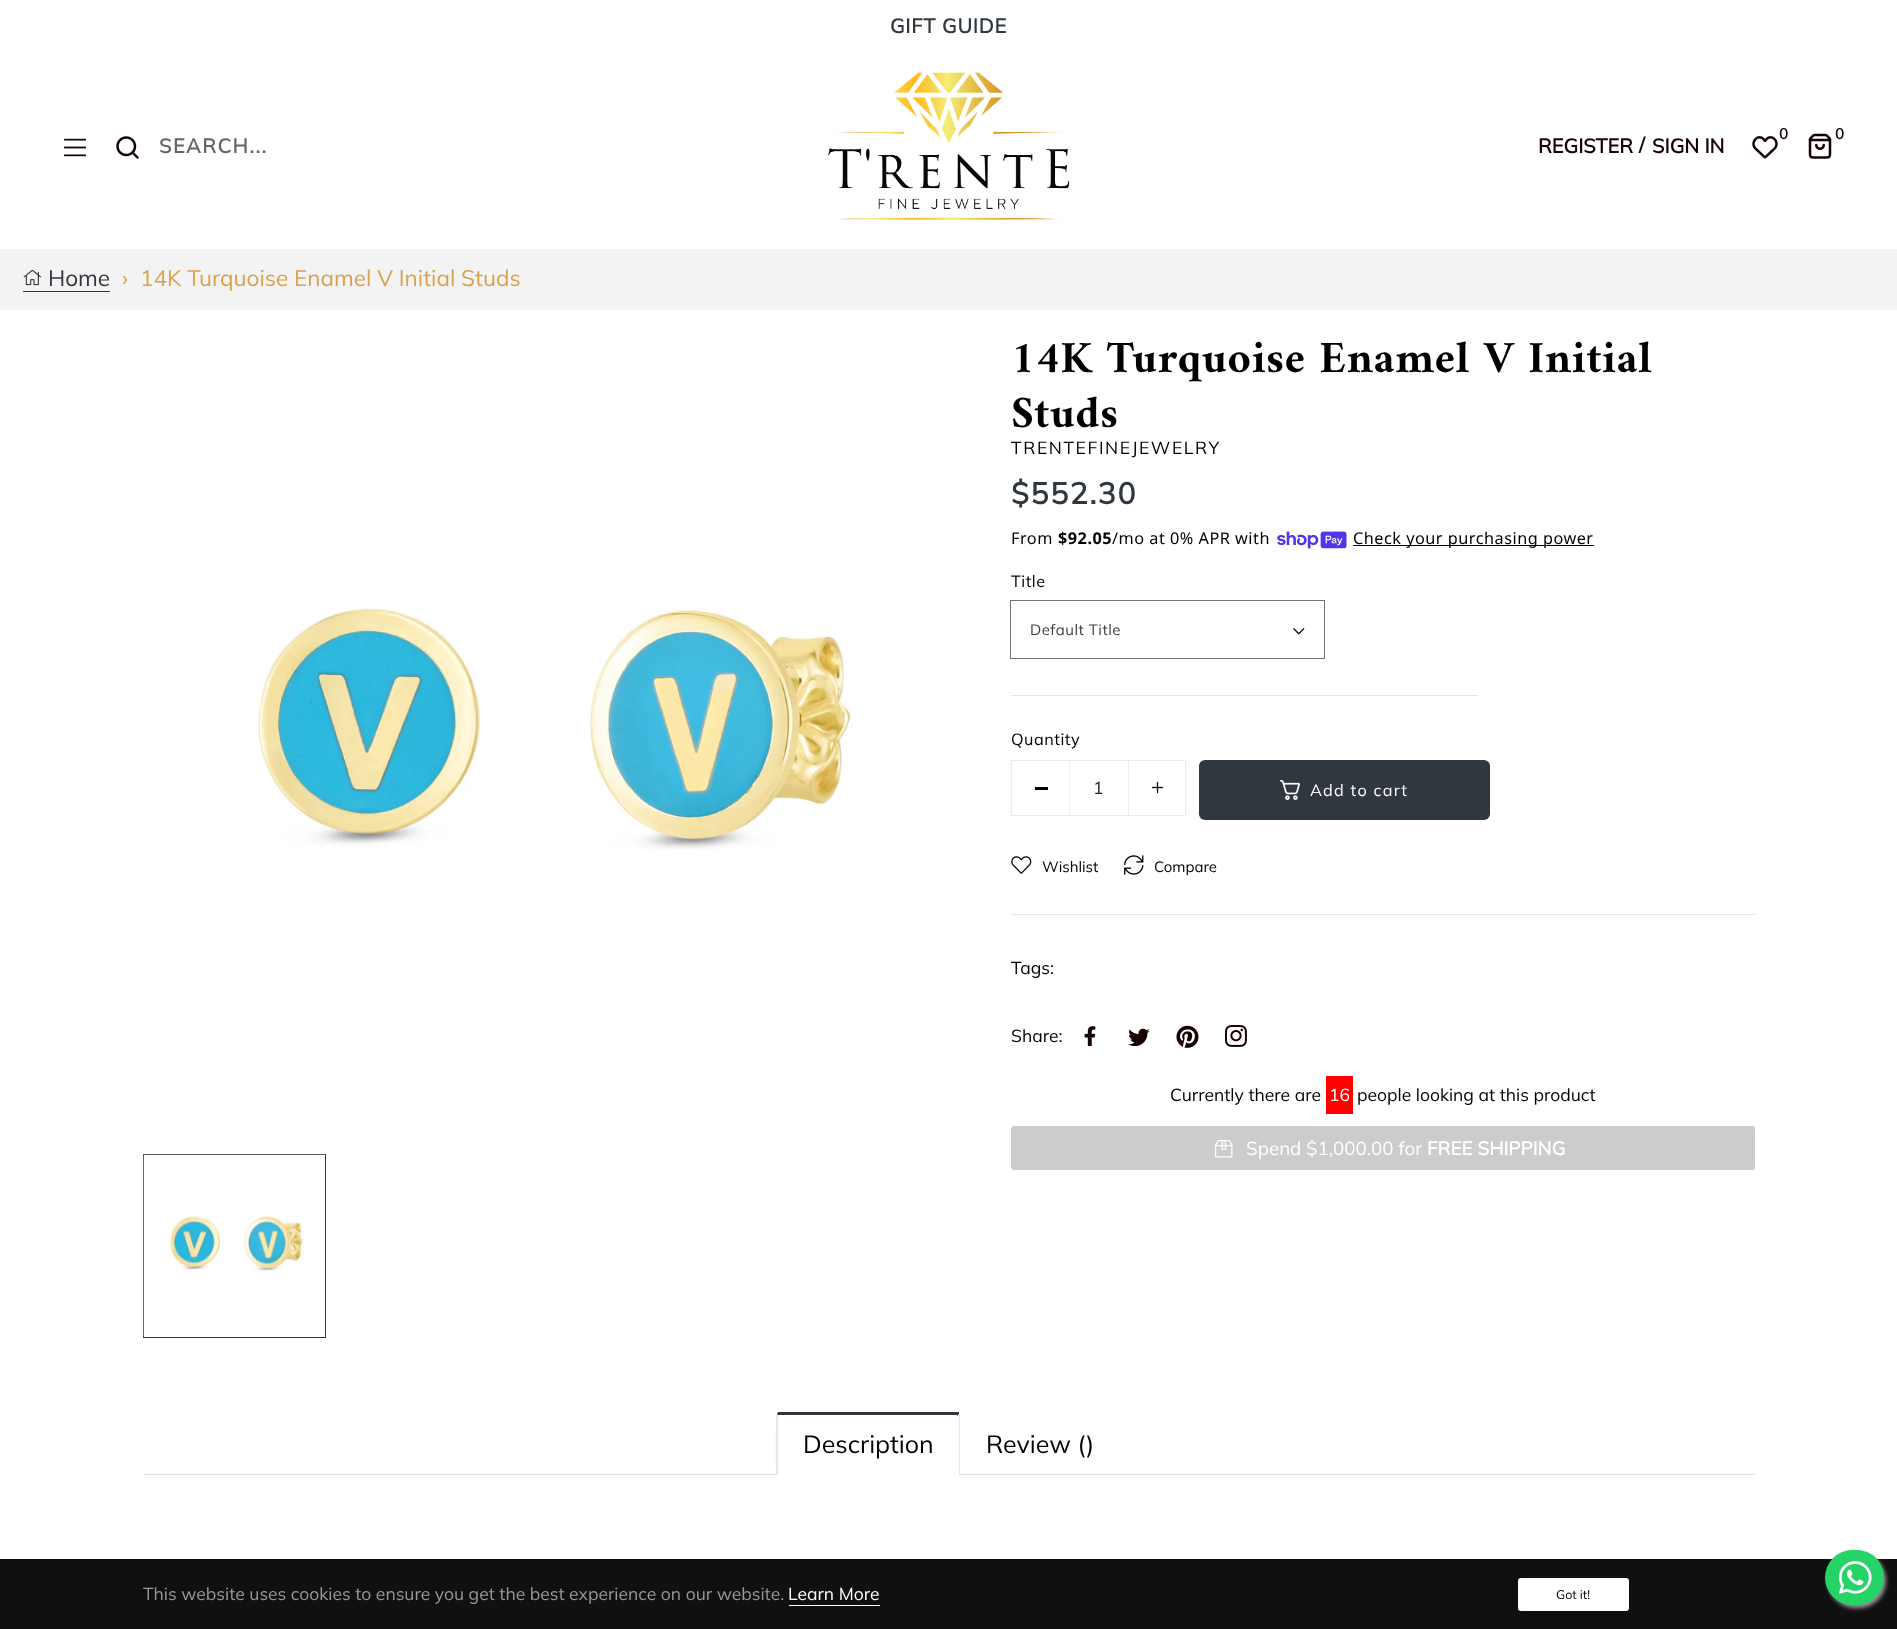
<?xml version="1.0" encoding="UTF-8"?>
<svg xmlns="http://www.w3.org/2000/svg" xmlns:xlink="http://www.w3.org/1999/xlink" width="1897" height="1629">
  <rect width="100%" height="100%" fill="#ffffff" />
  <image x="64" y="138" width="22" height="19" xlink:href="image1.png" />
  <image x="116" y="136" width="23" height="23" xlink:href="image2.png" />
  <image x="828" y="72" width="242" height="148" xlink:href="image3.png" />
  <image x="1752" y="136" width="26" height="23" xlink:href="image4.png" />
  <image x="1808" y="133" width="24" height="26" xlink:href="image5.png" />
  <rect y="249" width="1897" height="61" fill="#f3f3f3" />
  <rect x="23" y="291" width="87" height="1" fill="#30373e" />
  <image x="23" y="269" width="19" height="17" xlink:href="image6.png" />
  <image x="258" y="608" width="594" height="242" xlink:href="image7.png" />
  <rect x="143.5" y="1154.5" width="182" height="183" fill="none" stroke="#30373e" />
  <image x="143" y="1154" width="182" height="183" xlink:href="image8.png" />
  <image x="1277" y="531" width="70" height="18" xlink:href="image9.png" />
  <rect x="1353" y="545" width="241" height="1" fill="#000000" />
  <rect x="1010.5" y="600.5" width="314" height="58" fill="none" stroke="#737373" />
  <image x="1293" y="628" width="12" height="7" xlink:href="image10.png" />
  <rect x="1011" y="695" width="467" height="1" fill="#e5e5e5" />
  <rect x="1011.5" y="760.5" width="174" height="55" fill="none" stroke="#ebebeb" />
  <rect x="1035" y="787" width="13" height="3" fill="#000000" />
  <rect x="1128" y="761" width="1" height="54" fill="#eeeeee" />
  <rect x="1069" y="761" width="1" height="54" fill="#eeeeee" />
  <image x="1151" y="781" width="13" height="13" xlink:href="image11.png" />
  <rect x="1199" y="760" width="291" height="60" rx="6" fill="#30373e" />
  <image x="1280" y="780" width="20" height="20" xlink:href="image12.png" />
  <rect x="1011" y="914" width="744" height="1" fill="#e5e5e5" />
  <image x="1011" y="856" width="21" height="18" xlink:href="image13.png" />
  <image x="1124" y="855" width="20" height="20" xlink:href="image14.png" />
  <image x="1084" y="1026" width="12" height="20" xlink:href="image15.png" />
  <image x="1128" y="1028" width="22" height="18" xlink:href="image16.png" />
  <image x="1176" y="1025" width="23" height="23" xlink:href="image17.png" />
  <image x="1225" y="1025" width="22" height="22" xlink:href="image18.png" />
  <rect x="1326" y="1076" width="27" height="38" fill="#ff0000" />
  <rect x="1011" y="1126" width="744" height="44" rx="3" fill="#cccccc" />
  <image x="1215" y="1140" width="18" height="18" xlink:href="image19.png" />
  <rect x="143" y="1474" width="1612" height="1" fill="#dee2e6" />
  <path d="M 779 1415 h 178 l 2 1 v 59 h -181 v -60 z" fill="#ffffff" />
  <path d="M 777 1414 l 1 -2 h 181 v 2 l -1 2 l -1 -1 h -179 v 1 z" fill="#30373e" />
  <path d="M 959 1475 h 1 v -59 l -1 -2 l -1 2 h 1 z" fill="#e5e5e5" />
  <path d="M 776 1475 c 0 -7 -1 -59 1 -61 l 1 2 v 59 z" fill="#e5e5e5" />
  <rect y="1559" width="1897" height="70" fill="#101010" />
  <rect x="789" y="1605" width="91" height="1" fill="#ffffff" />
  <rect x="1518" y="1578" width="111" height="33" rx="3" fill="#ffffff" />
  <rect x="1828" y="1553" width="58" height="55" rx="27.5" fill="#999999" filter="blur(2px)" />
  <rect x="1825" y="1550" width="59" height="55" rx="27.5" fill="#25d366" />
  <image x="1839" y="1561" width="33" height="33" xlink:href="image20.png" />
  <text x="890" y="33" style="font-family: Mulish; font-size: 20px; font-weight: bold; letter-spacing: 0.75px; fill: #30373e">GIFT GUIDE</text>
  <text x="159" y="153" style="font-family: Mulish; font-size: 20px; font-weight: bold; letter-spacing: 1.5px; fill: #666666">SEARCH...</text>
  <text x="1779" y="139" style="font-family: Mulish; font-size: 15px; font-weight: bold; fill: #160202">0</text>
  <text x="1835" y="139" style="font-family: Mulish; font-size: 15px; font-weight: bold; fill: #160202">0</text>
  <text x="1538" y="153" style="font-family: Mulish; font-size: 20px; font-weight: bold; fill: #160202">REGISTER</text>
  <text x="1639" y="152" style="font-family: Mulish; font-size: 20px; font-weight: bold; fill: #160202">/</text>
  <text x="1652" y="153" style="font-family: Mulish; font-size: 20px; font-weight: bold; fill: #160202">SIGN IN</text>
  <text x="48" y="286" style="font-family: Mulish; font-size: 22.5px; font-weight: 200; fill: #30373e">Home</text>
  <text x="122" y="286" style="font-family: Mulish; font-size: 22.5px; font-weight: 200; fill: #daa14c">›</text>
  <text x="140" y="286" style="font-family: Mulish; font-size: 22.5px; font-weight: 200; fill: #daa14c">14K Turquoise Enamel V Initial Studs</text>
  <text x="1011" y="372" style="font-family: Amiri; font-size: 45px; font-weight: bold; letter-spacing: 0.75px; fill: #000000">14K Turquoise Enamel V Initial</text>
  <text x="1011" y="427" style="font-family: Amiri; font-size: 45px; font-weight: bold; letter-spacing: 0.75px; fill: #000000">Studs</text>
  <text x="1011" y="454" style="font-family: Mulish; font-size: 17.5px; font-weight: 200; letter-spacing: 1.6px; fill: #000000">TRENTEFINEJEWELRY</text>
  <text x="1011" y="504" style="font-family: Mulish; font-size: 30px; font-weight: bold; letter-spacing: 1.6px; fill: #30373e">$552.30</text>
  <text x="1011" y="544" style="font-family: Noto Sans; font-size: 16.25px; letter-spacing: 0.5px; fill: #000000">From</text>
  <text x="1058" y="544" style="font-family: Noto Sans; font-size: 16.25px; font-weight: bold; letter-spacing: 0.5px; fill: #000000">$92.05</text>
  <text x="1112" y="544" style="font-family: Noto Sans; font-size: 16.25px; letter-spacing: 0.5px; fill: #000000">/mo at 0% APR with</text>
  <text x="1353" y="544" style="font-family: Noto Sans; font-size: 16.25px; letter-spacing: 0.5px; fill: #000000">Check your purchasing power</text>
  <text x="1011" y="587" style="font-family: Mulish; font-size: 16.25px; font-weight: 200; letter-spacing: 0.5px; fill: #000000">Title</text>
  <text x="1030" y="635" style="font-family: Mulish; font-size: 15px; font-weight: 200; letter-spacing: 0.5px; fill: #404040">Default Title</text>
  <text x="1011" y="745" style="font-family: Mulish; font-size: 16.25px; font-weight: 200; letter-spacing: 0.5px; fill: #000000">Quantity</text>
  <text x="1093" y="794" style="font-family: Mulish; font-size: 17.5px; font-weight: 200; fill: #262626">1</text>
  <text x="1310" y="796" style="font-family: Mulish; font-size: 16.25px; font-weight: 200; letter-spacing: 1.25px; fill: #ffffff">Add to cart</text>
  <text x="1042" y="872" style="font-family: Mulish; font-size: 15px; font-weight: 200; fill: #000000">Wishlist</text>
  <text x="1154" y="872" style="font-family: Mulish; font-size: 15px; font-weight: 200; fill: #000000">Compare</text>
  <text x="1011" y="974" style="font-family: Mulish; font-size: 17.5px; font-weight: 200; fill: #000000">Tags:</text>
  <text x="1011" y="1042" style="font-family: Mulish; font-size: 17.5px; font-weight: 200; fill: #000000">Share:</text>
  <text x="1170" y="1101" style="font-family: Mulish; font-size: 17.5px; font-weight: 200; fill: #000000">Currently there are</text>
  <text x="1329" y="1101" style="font-family: Mulish; font-size: 17.5px; font-weight: 200; fill: #ffffff">16</text>
  <text x="1357" y="1101" style="font-family: Mulish; font-size: 17.5px; font-weight: 200; fill: #000000">people looking at this product</text>
  <text x="1246" y="1155" style="font-family: Mulish; font-size: 18.75px; font-weight: 200; fill: #ffffff">Spend $1,000.00 for</text>
  <text x="1427" y="1155" style="font-family: Mulish; font-size: 18.75px; font-weight: bold; fill: #ffffff">FREE SHIPPING</text>
  <text x="803" y="1453" style="font-family: Mulish; font-size: 25px; font-weight: 200; fill: #000000">Description</text>
  <text x="986" y="1453" style="font-family: Mulish; font-size: 25px; font-weight: 200; fill: #000000">Review ()</text>
  <text x="143" y="1600" style="font-family: Mulish; font-size: 17.5px; font-weight: 200; fill: #999999">This website uses cookies to ensure you get the best experience on our website.</text>
  <text x="788" y="1600" style="font-family: Mulish; font-size: 17.5px; font-weight: 200; fill: #ffffff">Learn More</text>
  <text x="1556" y="1599" style="font-family: Mulish; font-size: 12.5px; font-weight: 200; fill: #000000">Got it!</text>
</svg>
